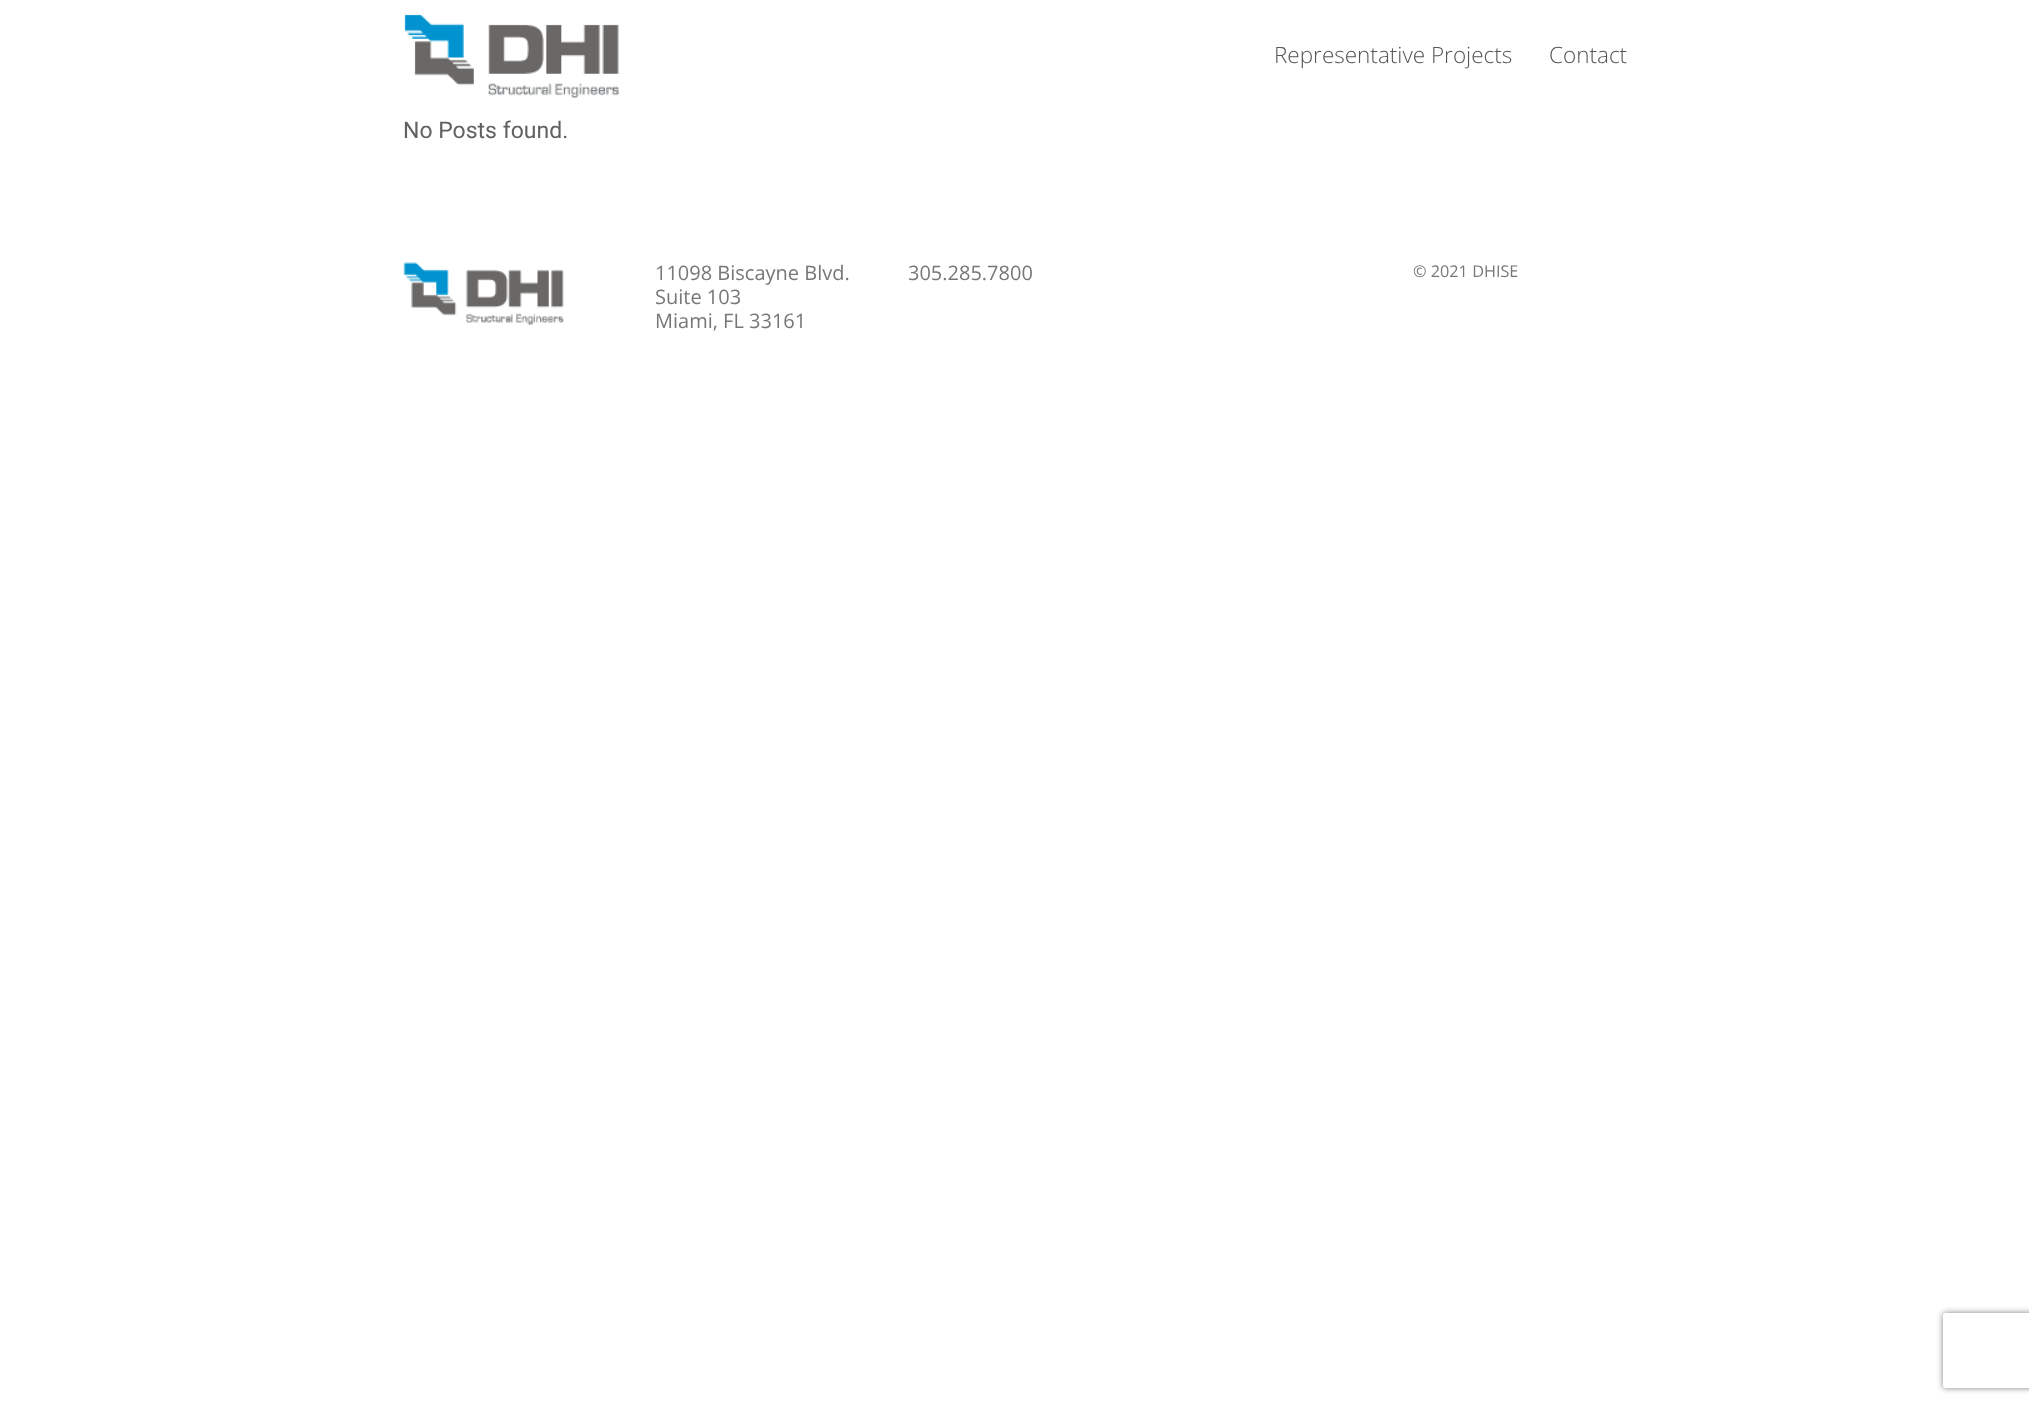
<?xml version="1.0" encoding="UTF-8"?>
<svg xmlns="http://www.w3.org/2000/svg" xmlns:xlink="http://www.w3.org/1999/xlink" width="2029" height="1404">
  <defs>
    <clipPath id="clip1"><path d="M 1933 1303 h 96 v 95 h -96 z m 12.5 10 h 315 c 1.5 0 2.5 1 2.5 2.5 v 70 c 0 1.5 -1 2.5 -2.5 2.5 h -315 c -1.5 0 -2.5 -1 -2.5 -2.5 v -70 c 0 -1.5 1 -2.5 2.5 -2.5 z" clip-rule="evenodd" /></clipPath>
  </defs>
  <rect width="100%" height="100%" fill="#ffffff" />
  <image x="404" y="14" width="215" height="84" xlink:href="image1.png" />
  <image x="403" y="262" width="161" height="63" xlink:href="image2.png" />
  <g clip-path="url(#clip1)">
    <rect x="1943" y="1313" width="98" height="75" rx="2.5" fill="#808080" filter="blur(3px)" />
  </g>
  <text x="1274" y="63" style="font-family: Open Sans; font-size: 22.5px; font-weight: 300; fill: #555555">Representative Projects</text>
  <text x="1549" y="63" style="font-family: Open Sans; font-size: 22.5px; font-weight: 300; fill: #555555">Contact</text>
  <text x="403" y="138" style="font-family: Roboto; font-size: 23px; fill: #616161">No Posts found.</text>
  <text x="655" y="280" style="font-family: Open Sans; font-size: 20px; fill: #777777">11098 Biscayne Blvd.</text>
  <text x="655" y="304" style="font-family: Open Sans; font-size: 20px; fill: #777777">Suite 103</text>
  <text x="655" y="328" style="font-family: Open Sans; font-size: 20px; fill: #777777">Miami, FL 33161</text>
  <text x="908" y="280" style="font-family: Open Sans; font-size: 20px; fill: #777777">305.285.7800</text>
  <text x="1413" y="277" style="font-family: Open Sans; font-size: 16.25px; fill: #777777">© 2021 DHISE</text>
</svg>
